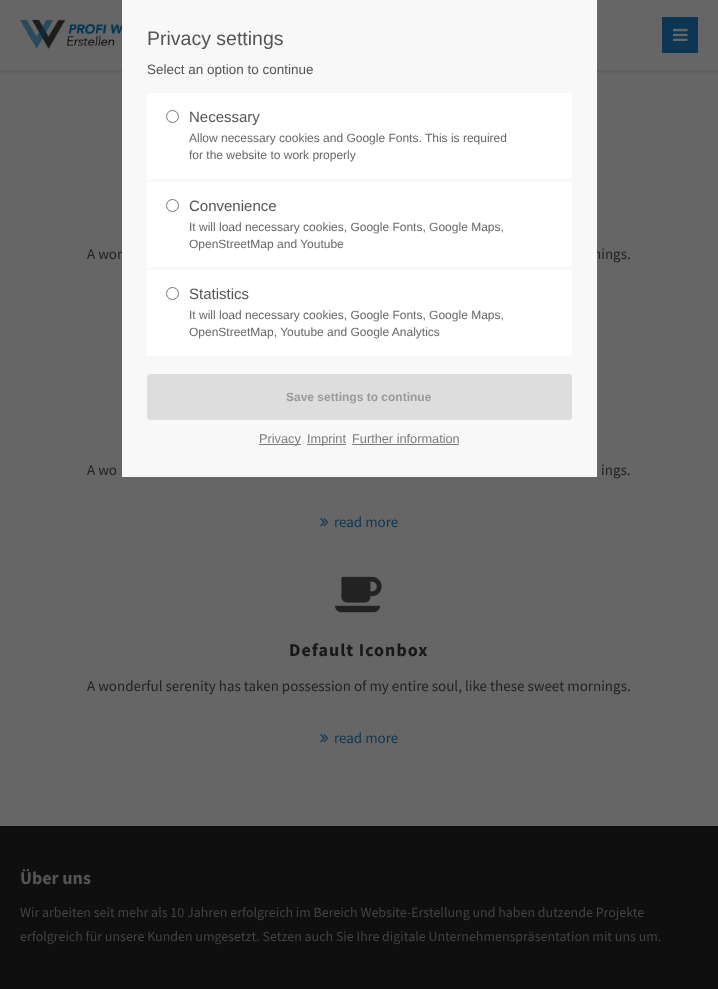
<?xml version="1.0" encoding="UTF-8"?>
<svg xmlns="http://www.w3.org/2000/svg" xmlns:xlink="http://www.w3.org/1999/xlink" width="718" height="989">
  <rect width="100%" height="100%" fill="#666666" />
  <rect x="-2" y="-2" width="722" height="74" fill="#000000" fill-opacity="0.1" filter="blur(1px)" />
  <rect width="718" height="70" fill="#666666" />
  <image x="20" y="19" width="102" height="30" xlink:href="image1.png" />
  <rect x="662" y="17" width="36" height="36" fill="#0c3654" />
  <image x="673" y="28" width="15" height="13" xlink:href="image2.png" />
  <image x="320" y="518" width="9" height="9" xlink:href="image3.png" />
  <image x="335" y="576" width="47" height="37" xlink:href="image4.png" />
  <image x="320" y="734" width="9" height="9" xlink:href="image3.png" />
  <rect y="826" width="718" height="163" fill="#0f0f0f" />
  <text x="87" y="259" style="font-family: Source Sans Pro; font-size: 15px; fill: #222222">A won</text>
  <text x="593" y="259" style="font-family: Source Sans Pro; font-size: 15px; fill: #222222">nings.</text>
  <rect x="122" width="475" height="477" fill="#f8f8f8" />
  <rect x="147.5" y="374.5" width="424" height="45" rx="2.5" fill="#dddddd" stroke="#dddddd" />
  <text x="286" y="401" style="font-family: Liberation Sans; font-size: 12px; font-weight: bold; fill: #9a9a9a">Save settings to continue</text>
  <rect x="147" y="270" width="425" height="86" fill="#ffffff" />
  <text x="189" y="336" style="font-family: Liberation Sans; font-size: 12px; fill: #666666">OpenStreetMap, Youtube and Google Analytics</text>
  <text x="189" y="319" style="font-family: Liberation Sans; font-size: 12px; fill: #666666">It will load necessary cookies, Google Fonts, Google Maps,</text>
  <text x="189" y="299" style="font-family: Liberation Sans; font-size: 15px; fill: #545454">Statistics</text>
  <circle cx="172.5" cy="293.5" r="6" fill="none" stroke="#767676" />
  <rect x="147" y="182" width="425" height="85" fill="#ffffff" />
  <text x="189" y="248" style="font-family: Liberation Sans; font-size: 12px; fill: #666666">OpenStreetMap and Youtube</text>
  <text x="189" y="231" style="font-family: Liberation Sans; font-size: 12px; fill: #666666">It will load necessary cookies, Google Fonts, Google Maps,</text>
  <text x="189" y="211" style="font-family: Liberation Sans; font-size: 15px; fill: #545454">Convenience</text>
  <circle cx="172.5" cy="205.5" r="6" fill="none" stroke="#767676" />
  <rect x="147" y="93" width="425" height="86" fill="#ffffff" />
  <text x="189" y="159" style="font-family: Liberation Sans; font-size: 12px; fill: #666666">for the website to work properly</text>
  <text x="189" y="142" style="font-family: Liberation Sans; font-size: 12px; fill: #666666">Allow necessary cookies and Google Fonts. This is required</text>
  <text x="189" y="122" style="font-family: Liberation Sans; font-size: 15px; fill: #545454">Necessary</text>
  <circle cx="172.5" cy="116.5" r="6" fill="none" stroke="#767676" />
  <text x="352" y="443" style="font-family: Liberation Sans; font-size: 12.75px; fill: #7b7b7b">Further information</text>
  <rect x="352" y="444" width="107" height="1" fill="#7c7c7c" />
  <rect x="307" y="444" width="39" height="1" fill="#7c7c7c" />
  <text x="307" y="443" style="font-family: Liberation Sans; font-size: 12.75px; fill: #7b7b7b">Imprint</text>
  <rect x="259" y="444" width="42" height="1" fill="#7c7c7c" />
  <text x="259" y="443" style="font-family: Liberation Sans; font-size: 12.75px; fill: #7b7b7b">Privacy</text>
  <text x="147" y="74" style="font-family: Liberation Sans; font-size: 13.5px; fill: #545454">Select an option to continue</text>
  <text x="147" y="45" style="font-family: Liberation Sans; font-size: 19.5px; fill: #545454">Privacy settings</text>
  <text x="87" y="475" style="font-family: Source Sans Pro; font-size: 15px; fill: #222222">A wo</text>
  <text x="601" y="475" style="font-family: Source Sans Pro; font-size: 15px; fill: #222222">ings.</text>
  <text x="334" y="527" style="font-family: Source Sans Pro; font-size: 15px; fill: #0c3654">read more</text>
  <text x="289" y="656" style="font-family: Source Sans Pro; font-size: 18px; font-weight: bold; letter-spacing: 1px; fill: #18181a">Default Iconbox</text>
  <text x="87" y="691" style="font-family: Source Sans Pro; font-size: 15px; fill: #222222">A wonderful serenity has taken possession of my entire soul, like these sweet mornings.</text>
  <text x="334" y="743" style="font-family: Source Sans Pro; font-size: 15px; fill: #0c3654">read more</text>
  <text x="20" y="884" style="font-family: Source Sans Pro; font-size: 18px; font-weight: bold; fill: #545454">Über uns</text>
  <text x="20" y="917" style="font-family: Source Sans Pro; font-size: 13.95px; fill: #434343">Wir arbeiten seit mehr als 10 Jahren erfolgreich im Bereich Website-Erstellung und haben dutzende Projekte</text>
  <text x="20" y="941" style="font-family: Source Sans Pro; font-size: 13.95px; fill: #434343">erfolgreich für unsere Kunden umgesetzt. Setzen auch Sie Ihre digitale Unternehmenspräsentation mit uns um.</text>
</svg>
